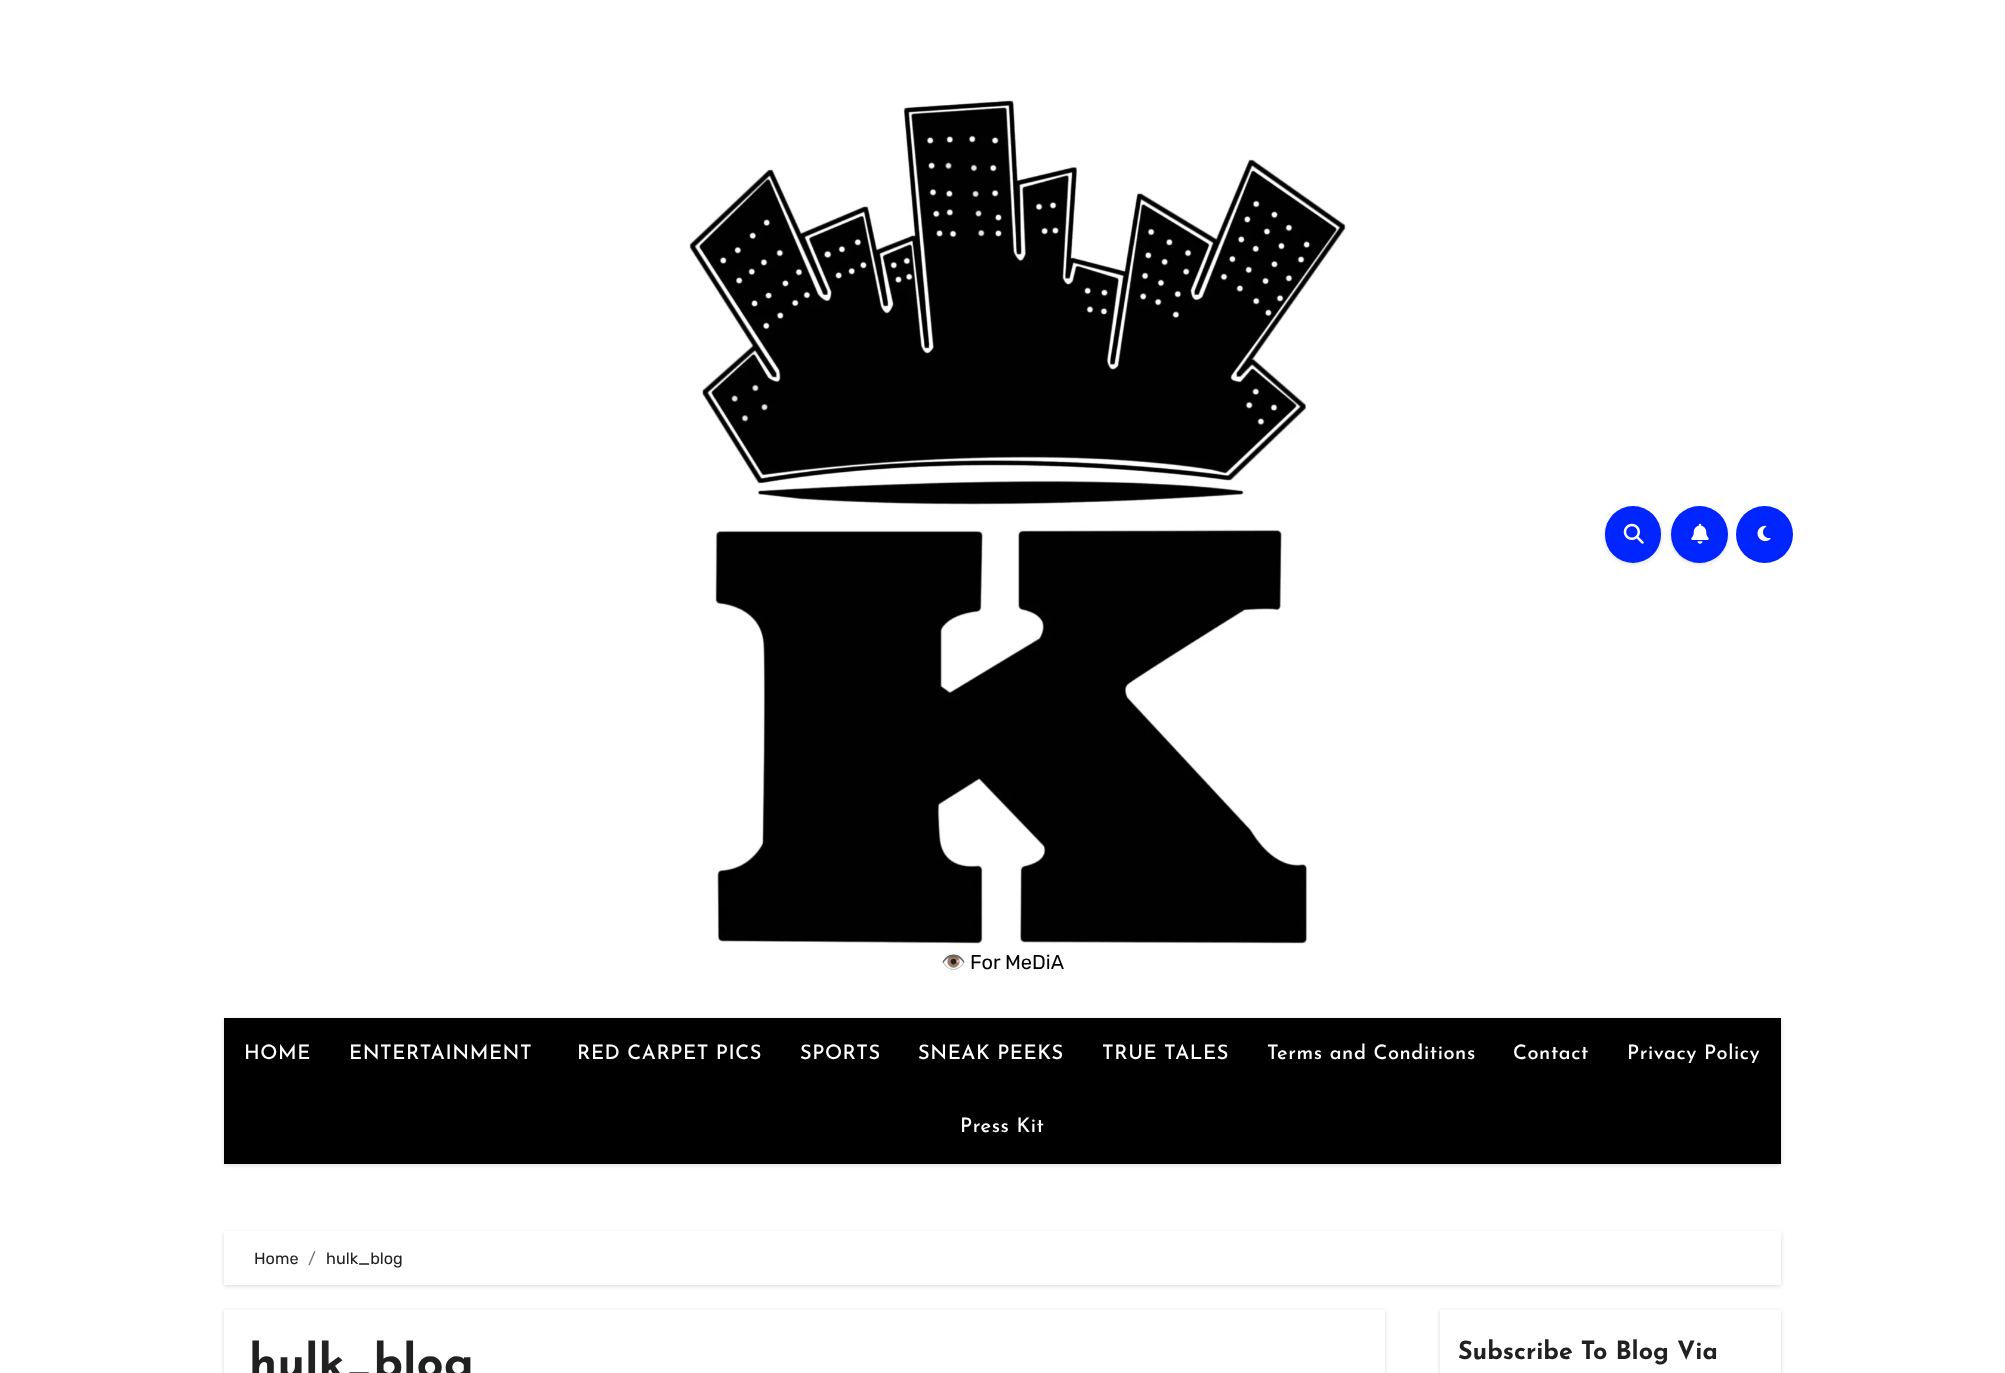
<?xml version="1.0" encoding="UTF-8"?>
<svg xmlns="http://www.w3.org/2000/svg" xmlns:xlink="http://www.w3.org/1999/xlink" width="2005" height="1373">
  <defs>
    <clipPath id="clip1"><path d="M 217 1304 h 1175 v 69 h -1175 z m 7 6 h 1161 v 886 h -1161 z" clip-rule="evenodd" /></clipPath>
    <clipPath id="clip2"><path d="M 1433 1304 h 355 v 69 h -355 z m 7 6 h 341 v 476 h -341 z" clip-rule="evenodd" /></clipPath>
  </defs>
  <rect width="100%" height="100%" fill="#ffffff" />
  <rect x="1605" y="508" width="56" height="56" rx="28" fill="#000000" fill-opacity="0.15" filter="blur(2px)" />
  <rect x="1605" y="506" width="56" height="57" rx="28" fill="#0025ff" />
  <image x="1623" y="523" width="21" height="21" xlink:href="image1.png" />
  <rect x="1671" y="508" width="57" height="56" rx="28" fill="#000000" fill-opacity="0.15" filter="blur(2px)" />
  <circle cx="1699.5" cy="534.5" r="28.5" fill="#0025ff" />
  <image x="1691" y="523" width="18" height="21" xlink:href="image2.png" />
  <circle cx="1764.5" cy="534.5" r="28.5" fill="#0025ff" />
  <image x="1757" y="525" width="14" height="17" xlink:href="image3.png" />
  <image x="689" y="100" width="658" height="844" xlink:href="image4.png" />
  <rect x="224" y="1019" width="1557" height="146" fill="#000000" fill-opacity="0.15" filter="blur(2px)" />
  <rect x="224" y="1018" width="1557" height="146" fill="#000000" />
  <rect x="224" y="1233" width="1557" height="53" fill="#000000" fill-opacity="0.15" filter="blur(2px)" />
  <rect x="224" y="1231" width="1557" height="54" fill="#ffffff" />
  <g clip-path="url(#clip1)">
    <rect x="224" y="1311" width="1161" height="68" fill="#000000" fill-opacity="0.15" filter="blur(2px)" />
  </g>
  <g clip-path="url(#clip2)">
    <rect x="1440" y="1311" width="341" height="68" fill="#000000" fill-opacity="0.15" filter="blur(2px)" />
  </g>
  <text x="941" y="969" style="font-family: Noto Color Emoji; font-size: 20px; fill: #000000">👁️</text>
  <text x="970" y="969" style="font-family: Rubik; font-size: 20px; font-weight: 300; fill: #000000">For MeDiA</text>
  <text x="244" y="1059" style="font-family: Josefin Sans; font-size: 20px; font-weight: 500; letter-spacing: 0.6px; fill: #ffffff">HOME</text>
  <text x="349" y="1059" style="font-family: Josefin Sans; font-size: 20px; font-weight: 500; letter-spacing: 0.6px; fill: #ffffff">ENTERTAINMENT</text>
  <text x="577" y="1059" style="font-family: Josefin Sans; font-size: 20px; font-weight: 500; letter-spacing: 0.6px; fill: #ffffff">RED CARPET PICS</text>
  <text x="800" y="1059" style="font-family: Josefin Sans; font-size: 20px; font-weight: 500; letter-spacing: 0.6px; fill: #ffffff">SPORTS</text>
  <text x="918" y="1059" style="font-family: Josefin Sans; font-size: 20px; font-weight: 500; letter-spacing: 0.6px; fill: #ffffff">SNEAK PEEKS</text>
  <text x="1102" y="1059" style="font-family: Josefin Sans; font-size: 20px; font-weight: 500; letter-spacing: 0.6px; fill: #ffffff">TRUE TALES</text>
  <text x="1267" y="1059" style="font-family: Josefin Sans; font-size: 20px; font-weight: 500; letter-spacing: 0.6px; fill: #ffffff">Terms and Conditions</text>
  <text x="1513" y="1059" style="font-family: Josefin Sans; font-size: 20px; font-weight: 500; letter-spacing: 0.6px; fill: #ffffff">Contact</text>
  <text x="1627" y="1059" style="font-family: Josefin Sans; font-size: 20px; font-weight: 500; letter-spacing: 0.6px; fill: #ffffff">Privacy Policy</text>
  <text x="960" y="1132" style="font-family: Josefin Sans; font-size: 20px; font-weight: 500; letter-spacing: 0.6px; fill: #ffffff">Press Kit</text>
  <text x="254" y="1264" style="font-family: Rubik; font-size: 16.25px; font-weight: 300; fill: #212121">Home</text>
  <text x="308" y="1264" style="font-family: Rubik; font-size: 16.25px; font-weight: 300; fill: #6c757d">/</text>
  <text x="326" y="1264" style="font-family: Rubik; font-size: 16.25px; font-weight: 300; fill: #212121">hulk_blog</text>
  <text x="249" y="1378" style="font-family: Josefin Sans; font-size: 47.5px; font-weight: bold; fill: #212121">hulk_blog</text>
  <text x="1458" y="1359" style="font-family: Josefin Sans; font-size: 25px; font-weight: bold; fill: #212121">Subscribe To Blog Via</text>
</svg>
